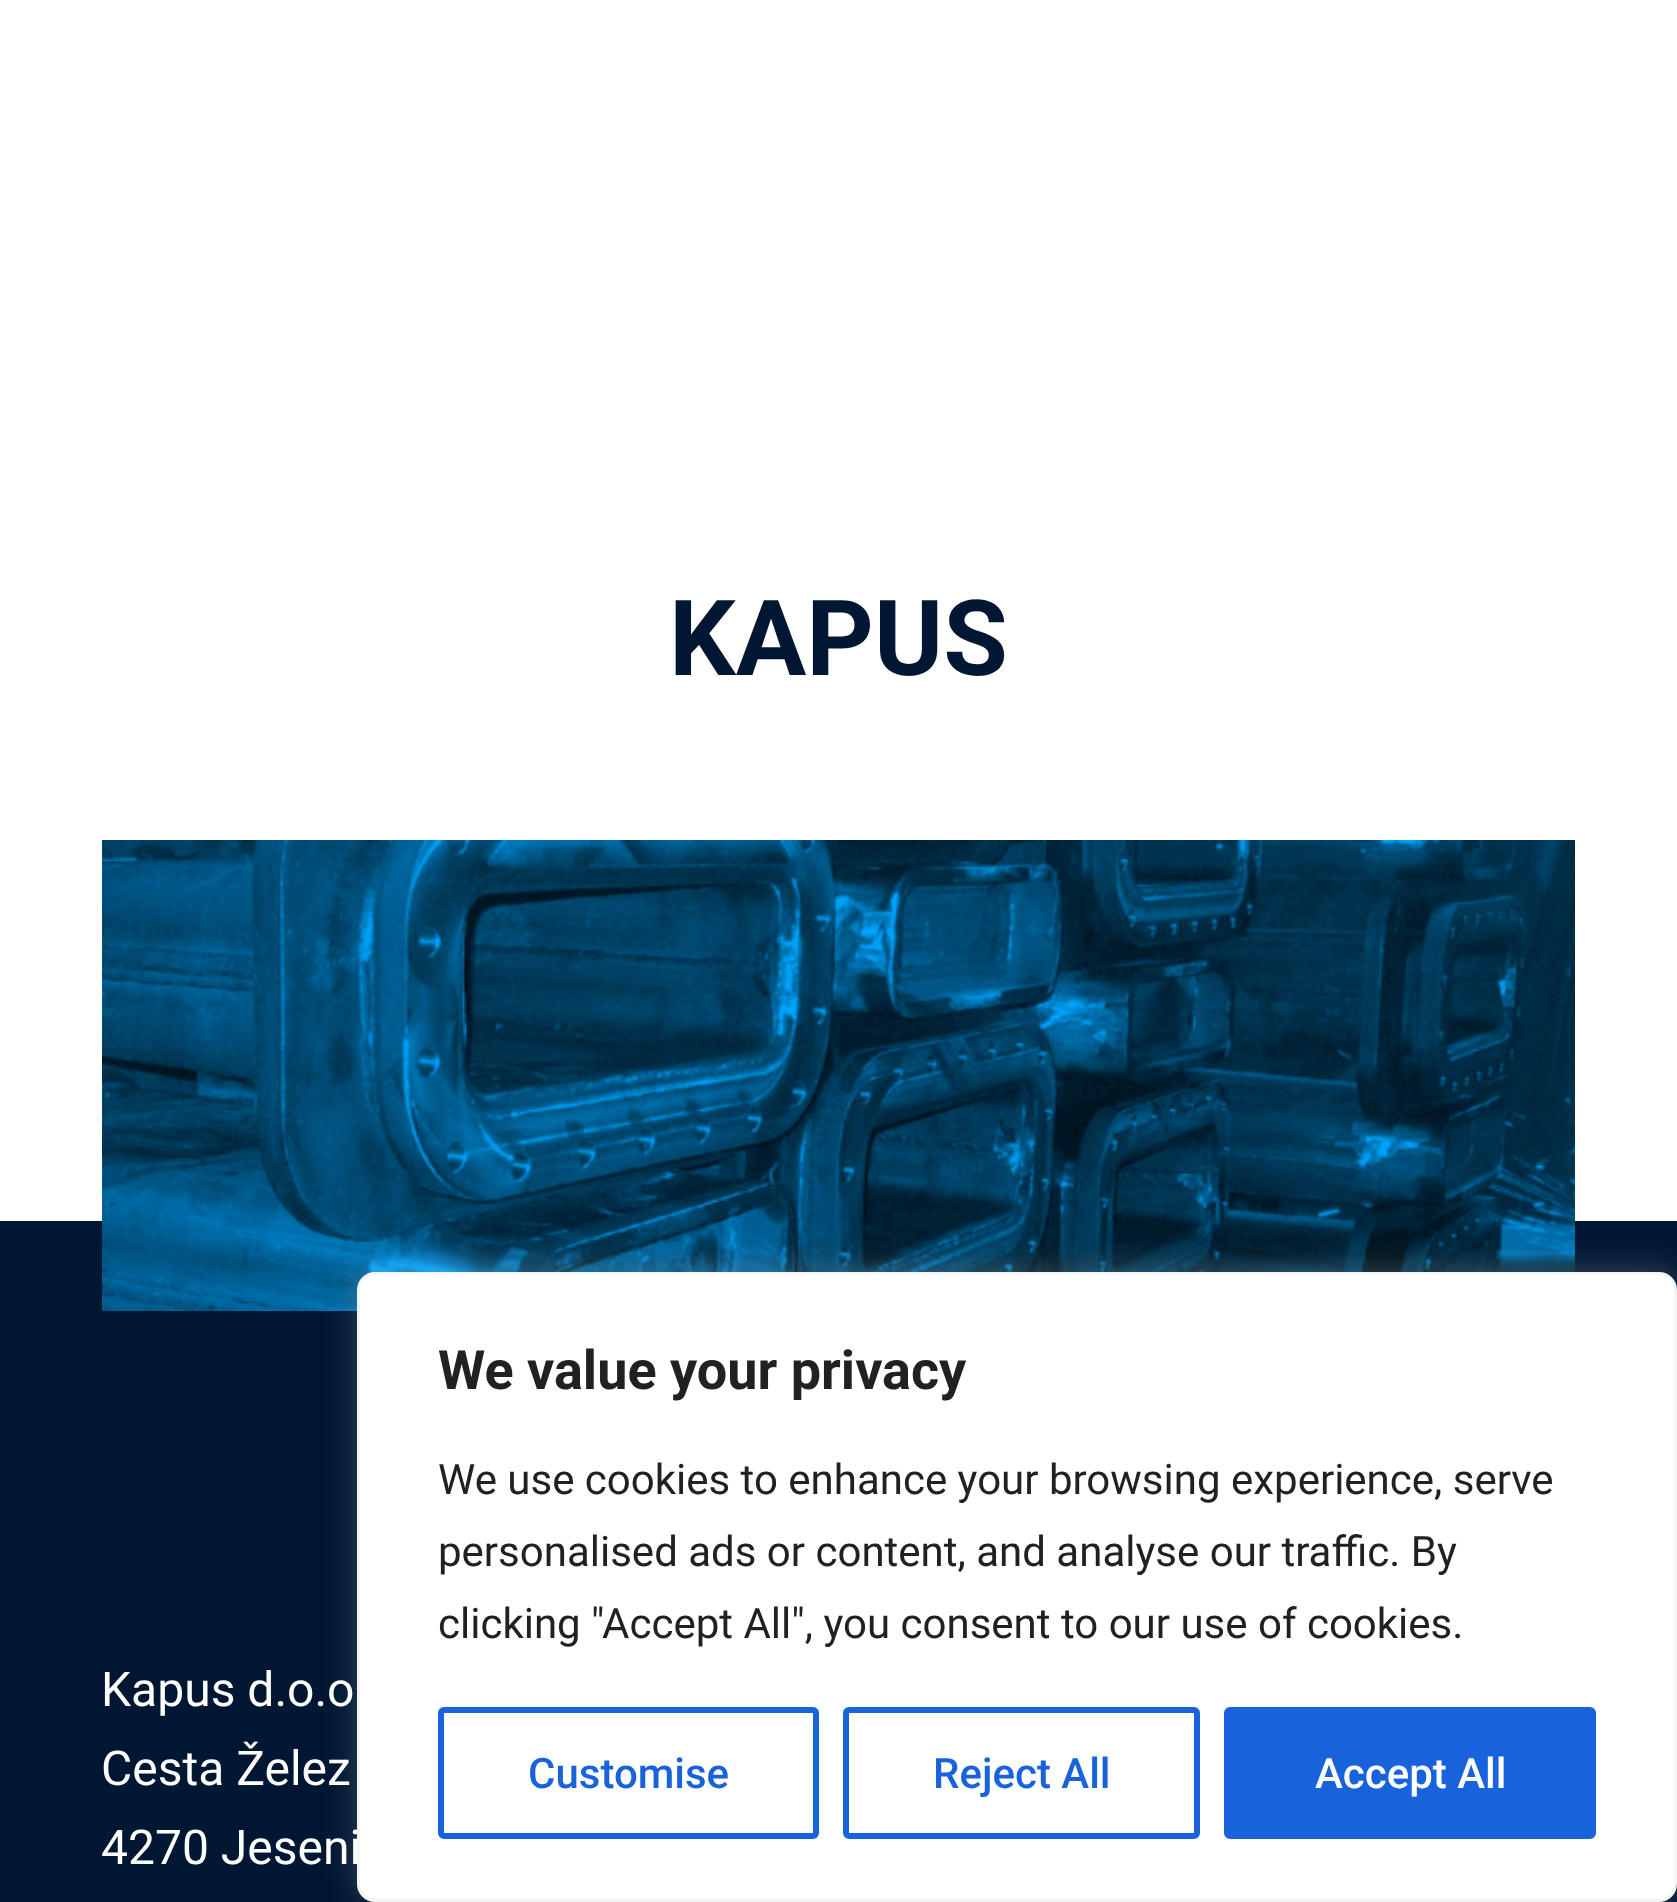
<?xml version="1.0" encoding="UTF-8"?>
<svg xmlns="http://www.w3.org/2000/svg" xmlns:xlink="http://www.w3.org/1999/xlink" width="1677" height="1902">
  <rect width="100%" height="100%" fill="#ffffff" />
  <rect y="1221" width="1677" height="681" fill="#001733" />
  <image x="102" y="840" width="1473" height="471" xlink:href="image1.png" />
  <rect x="357" y="1269" width="1320" height="630" rx="18" fill="#acabab" fill-opacity="0.3" filter="blur(15px)" />
  <rect x="358.5" y="1273.5" width="1317" height="627" rx="16.5" fill="#ffffff" stroke="#f4f4f4" stroke-width="3" />
  <rect x="441" y="1710" width="375" height="126" rx="3" fill="none" stroke="#1863dc" stroke-width="6" />
  <rect x="846" y="1710" width="351" height="126" rx="3" fill="none" stroke="#1863dc" stroke-width="6" />
  <rect x="1227" y="1710" width="366" height="126" rx="3" fill="#1863dc" stroke="#1863dc" stroke-width="6" />
  <text x="669" y="675" style="font-family: Roboto; font-size: 105px; font-weight: bold; fill: #001733">KAPUS</text>
  <text x="101" y="1706" style="font-family: Roboto; font-size: 48px; fill: #ffffff">Kapus d.o.o</text>
  <text x="101" y="1785" style="font-family: Roboto; font-size: 48px; fill: #ffffff">Cesta Želez</text>
  <text x="101" y="1864" style="font-family: Roboto; font-size: 48px; fill: #ffffff">4270 Jeseni</text>
  <text x="438" y="1389" style="font-family: Roboto; font-size: 54px; font-weight: bold; fill: #212121">We value your privacy</text>
  <text x="438" y="1494" style="font-family: Roboto; font-size: 42px; fill: #212121">We use cookies to enhance your browsing experience, serve</text>
  <text x="438" y="1566" style="font-family: Roboto; font-size: 42px; fill: #212121">personalised ads or content, and analyse our traffic. By</text>
  <text x="438" y="1638" style="font-family: Roboto; font-size: 42px; fill: #212121">clicking "Accept All", you consent to our use of cookies.</text>
  <text x="528" y="1788" style="font-family: Roboto; font-size: 42px; font-weight: 500; fill: #1863dc">Customise</text>
  <text x="933" y="1788" style="font-family: Roboto; font-size: 42px; font-weight: 500; fill: #1863dc">Reject All</text>
  <text x="1315" y="1788" style="font-family: Roboto; font-size: 42px; font-weight: 500; fill: #ffffff">Accept All</text>
</svg>
